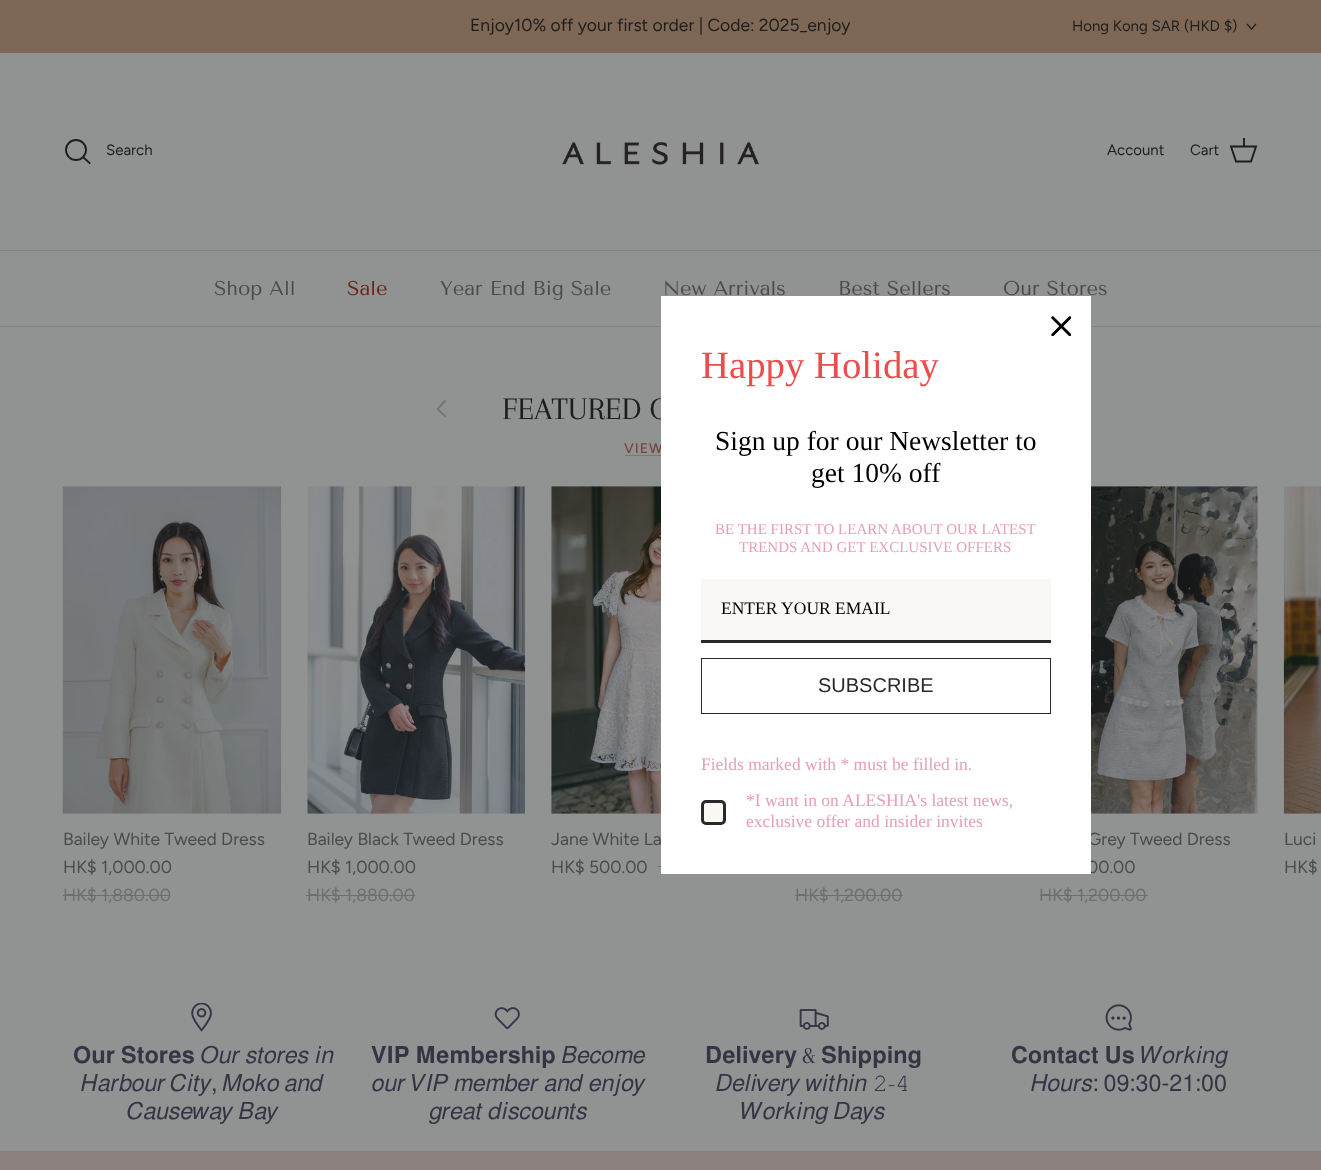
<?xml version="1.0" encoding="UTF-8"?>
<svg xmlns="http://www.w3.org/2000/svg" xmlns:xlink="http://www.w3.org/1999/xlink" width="1321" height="1170">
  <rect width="100%" height="100%" fill="#919292" />
  <rect width="1321" height="53" fill="#7e6754" />
  <path d="M 1256 24 l -4.5 5 l -4.5 -5" fill="none" stroke="#222323" stroke-width="1.2" />
  <rect y="250" width="1321" height="1" fill="#818486" />
  <circle cx="76" cy="150" r="10" fill="none" stroke="#1d1e1e" stroke-width="1.9" />
  <path d="M 83.5 157.5 l 6 5.5" fill="none" stroke="#1d1e1e" stroke-width="1.9" stroke-linecap="square" />
  <image x="562" y="142" width="197" height="23" xlink:href="image1.png" />
  <path d="M 1231 146.5 h 25 l -5 15 h -15 z" fill="none" stroke="#1d1e1e" stroke-width="1.9" />
  <rect x="1243" y="138" width="2" height="9" fill="#1d1e1e" fill-opacity="0.95" />
  <rect y="326" width="1321" height="1" fill="#818486" />
  <path d="M 445 416 l -7.5 -7 l 7.5 -8" fill="none" stroke="#747575" stroke-width="1.9" stroke-linecap="round" stroke-linejoin="round" />
  <rect x="625" y="455" width="36" height="1" fill="#84736f" />
  <image x="62" y="486" width="220" height="328" xlink:href="image3.png" />
  <rect x="63" y="895" width="107" height="1" fill="#6d6e6f" />
  <image x="307" y="486" width="218" height="328" xlink:href="image4.png" />
  <rect x="306" y="895" width="109" height="1" fill="#6d6e6f" />
  <image x="551" y="486" width="110" height="328" xlink:href="image5.png" />
  <rect x="658" y="866" width="3" height="1" fill="#6d6e6f" />
  <image x="1091" y="486" width="167" height="328" xlink:href="image6.png" />
  <rect x="1040" y="895" width="108" height="1" fill="#6d6e6f" />
  <image x="1283" y="486" width="38" height="328" xlink:href="image7.png" />
  <rect x="795" y="895" width="108" height="1" fill="#6d6e6f" />
  <image x="191" y="1003" width="21" height="29" xlink:href="image8.png" />
  <image x="494" y="1007" width="26" height="22" xlink:href="image9.png" />
  <image x="799" y="1009" width="30" height="21" xlink:href="image10.png" />
  <image x="1105" y="1004" width="27" height="27" xlink:href="image11.png" />
  <rect y="1152" width="1321" height="18" fill="#8b8280" />
  <rect y="1151" width="1321" height="1" fill="#877d7b" />
  <text x="470" y="31" style="font-family: Figtree; font-size: 17.5px; fill: #1d1e1e">Enjoy10% off your first order | Code: 2025_enjoy</text>
  <text x="1072" y="31" style="font-family: Figtree; font-size: 15px; fill: #1d1e1e">Hong Kong SAR (HKD $)</text>
  <text x="106" y="155" style="font-family: Figtree; font-size: 15px; fill: #1d1e1e">Search</text>
  <text x="1107" y="155" style="font-family: Figtree; font-size: 15px; fill: #1d1e1e">Account</text>
  <text x="1190" y="155" style="font-family: Figtree; font-size: 15px; fill: #1d1e1e">Cart</text>
  <text x="214" y="295" style="font-family: Tenor Sans; font-size: 20px; fill: #494b4c">Shop All</text>
  <text x="347" y="295" style="font-family: Tenor Sans; font-size: 20px; fill: #6c211a">Sale</text>
  <text x="440" y="295" style="font-family: Tenor Sans; font-size: 20px; fill: #494b4c">Year End Big Sale</text>
  <text x="663" y="295" style="font-family: Tenor Sans; font-size: 20px; fill: #494b4c">New Arrivals</text>
  <text x="838" y="295" style="font-family: Tenor Sans; font-size: 20px; fill: #494b4c">Best Sellers</text>
  <text x="1003" y="295" style="font-family: Tenor Sans; font-size: 20px; fill: #494b4c">Our Stores</text>
  <text x="502" y="419" style="font-family: Arapey; font-size: 32.5px; fill: #1d1e1e">FEATURED C</text>
  <text x="624" y="453" style="font-family: Figtree; font-size: 14px; font-weight: 500; letter-spacing: 1px; fill: #72443b">VIEW</text>
  <text x="63" y="845" style="font-family: Figtree; font-size: 17.5px; fill: #494b4c">Bailey White Tweed Dress</text>
  <text x="63" y="873" style="font-family: Figtree; font-size: 17.5px; fill: #494b4c">HK$ 1,000.00</text>
  <text x="63" y="901" style="font-family: Figtree; font-size: 17.5px; fill: #6d6e6f">HK$ 1,880.00</text>
  <text x="307" y="845" style="font-family: Figtree; font-size: 17.5px; fill: #494b4c">Bailey Black Tweed Dress</text>
  <text x="307" y="873" style="font-family: Figtree; font-size: 17.5px; fill: #494b4c">HK$ 1,000.00</text>
  <text x="307" y="901" style="font-family: Figtree; font-size: 17.5px; fill: #6d6e6f">HK$ 1,880.00</text>
  <text x="551" y="845" style="font-family: Figtree; font-size: 17.5px; fill: #494b4c">Jane White La</text>
  <text x="551" y="873" style="font-family: Figtree; font-size: 17.5px; fill: #494b4c">HK$ 500.00</text>
  <text x="1088" y="845" style="font-family: Figtree; font-size: 17.5px; fill: #494b4c">Grey Tweed Dress</text>
  <text x="1087" y="873" style="font-family: Figtree; font-size: 17.5px; fill: #494b4c">00.00</text>
  <rect x="661" y="296" width="430" height="578" fill="#ffffff" />
  <image x="1051" y="316" width="20" height="20" xlink:href="image2.png" />
  <rect x="702.5" y="801.5" width="22" height="22" rx="3.5" fill="#f9f8f4" stroke="#292929" stroke-width="3" />
  <text x="746" y="827" style="font-family: Liberation Serif; font-size: 17.5px; fill: #e6a0b1">exclusive offer and insider invites</text>
  <text x="746" y="806" style="font-family: Liberation Serif; font-size: 17.5px; fill: #e6a0b1">*I want in on ALESHIA's latest news,</text>
  <text x="701" y="770" style="font-family: Liberation Serif; font-size: 17.5px; fill: #e6a0b1">Fields marked with * must be filled in.</text>
  <rect x="701.5" y="658.5" width="349" height="55" fill="none" stroke="#292929" />
  <text x="818" y="692" style="font-family: Liberation Sans; font-size: 20px; fill: #292929">SUBSCRIBE</text>
  <rect x="701" y="579" width="350" height="61" fill="#f9f8f4" />
  <text x="721" y="614" style="font-family: Liberation Serif; font-size: 17.5px; fill: #000000">ENTER YOUR EMAIL</text>
  <rect x="701" y="640" width="350" height="3" fill="#292929" />
  <text x="739" y="552" style="font-family: Liberation Serif; font-size: 15px; fill: #e6a0b1">TRENDS AND GET EXCLUSIVE OFFERS</text>
  <text x="715" y="534" style="font-family: Liberation Serif; font-size: 15px; fill: #e6a0b1">BE THE FIRST TO LEARN ABOUT OUR LATEST</text>
  <text x="811" y="482" style="font-family: Liberation Serif; font-size: 27.5px; fill: #000000">get 10% off</text>
  <text x="715" y="450" style="font-family: Liberation Serif; font-size: 27.5px; fill: #000000">Sign up for our Newsletter to</text>
  <text x="701" y="378" style="font-family: Liberation Serif; font-size: 38.75px; fill: #ec4c4b">Happy Holiday</text>
  <text x="1039" y="901" style="font-family: Figtree; font-size: 17.5px; fill: #6d6e6f">HK$ 1,200.00</text>
  <text x="1284" y="845" style="font-family: Figtree; font-size: 17.5px; fill: #494b4c">Luci</text>
  <text x="1284" y="873" style="font-family: Figtree; font-size: 17.5px; fill: #494b4c">HK$</text>
  <text x="795" y="901" style="font-family: Figtree; font-size: 17.5px; fill: #6d6e6f">HK$ 1,200.00</text>
  <text x="73" y="1063" style="font-family: FreeSans; font-size: 23.4px; fill: #343544">𝐎𝐮𝐫 𝐒𝐭𝐨𝐫𝐞𝐬 𝑂𝑢𝑟 𝑠𝑡𝑜𝑟𝑒𝑠 𝑖𝑛</text>
  <text x="81" y="1091" word-spacing="-1" style="font-family: FreeSans; font-size: 23.4px; fill: #343544">𝐻𝑎𝑟𝑏𝑜𝑢𝑟 𝐶𝑖𝑡𝑦, 𝑀𝑜𝑘𝑜 𝑎𝑛𝑑</text>
  <text x="127" y="1119" style="font-family: FreeSans; font-size: 23.4px; fill: #343544">𝐶𝑎𝑢𝑠𝑒𝑤𝑎𝑦 𝐵𝑎𝑦</text>
  <text x="371" y="1063" style="font-family: FreeSans; font-size: 23.4px; fill: #343544">𝐕𝐈𝐏 𝐌𝐞𝐦𝐛𝐞𝐫𝐬𝐡𝐢𝐩 𝐵𝑒𝑐𝑜𝑚𝑒</text>
  <text x="372" y="1091" style="font-family: FreeSans; font-size: 23.4px; fill: #343544">𝑜𝑢𝑟 𝑉𝐼𝑃 𝑚𝑒𝑚𝑏𝑒𝑟 𝑎𝑛𝑑 𝑒𝑛𝑗𝑜𝑦</text>
  <text x="429" y="1119" style="font-family: FreeSans; font-size: 23.4px; fill: #343544">𝑔𝑟𝑒𝑎𝑡 𝑑𝑖𝑠𝑐𝑜𝑢𝑛𝑡𝑠</text>
  <text x="705" y="1063" style="font-family: FreeSans; font-size: 23.4px; fill: #343544">𝐃𝐞𝐥𝐢𝐯𝐞𝐫𝐲</text>
  <text x="802" y="1063" style="font-family: Arapey; font-size: 23.4px; fill: #343544">&amp;</text>
  <text x="821" y="1063" style="font-family: FreeSans; font-size: 23.4px; fill: #343544">𝐒𝐡𝐢𝐩𝐩𝐢𝐧𝐠</text>
  <text x="716" y="1091" style="font-family: FreeSans; font-size: 23.4px; fill: #343544">𝐷𝑒𝑙𝑖𝑣𝑒𝑟𝑦 𝑤𝑖𝑡ℎ𝑖𝑛</text>
  <text x="873" y="1091" style="font-family: FreeSerif; font-size: 23.4px; fill: #343544">𝟸</text>
  <text x="888" y="1091" style="font-family: Arapey; font-size: 23.4px; fill: #343544">-</text>
  <text x="895" y="1091" style="font-family: FreeSerif; font-size: 23.4px; fill: #343544">𝟺</text>
  <text x="741" y="1119" style="font-family: FreeSans; font-size: 23.4px; fill: #343544">𝑊𝑜𝑟𝑘𝑖𝑛𝑔 𝐷𝑎𝑦𝑠</text>
  <text x="1011" y="1063" style="font-family: FreeSans; font-size: 23.4px; fill: #343544">𝐂𝐨𝐧𝐭𝐚𝐜𝐭 𝐔𝐬 𝑊𝑜𝑟𝑘𝑖𝑛𝑔</text>
  <text x="1031" y="1091" word-spacing="-1" style="font-family: FreeSans; font-size: 23.4px; fill: #343544">𝐻𝑜𝑢𝑟𝑠: 09:30-21:00</text>
</svg>
